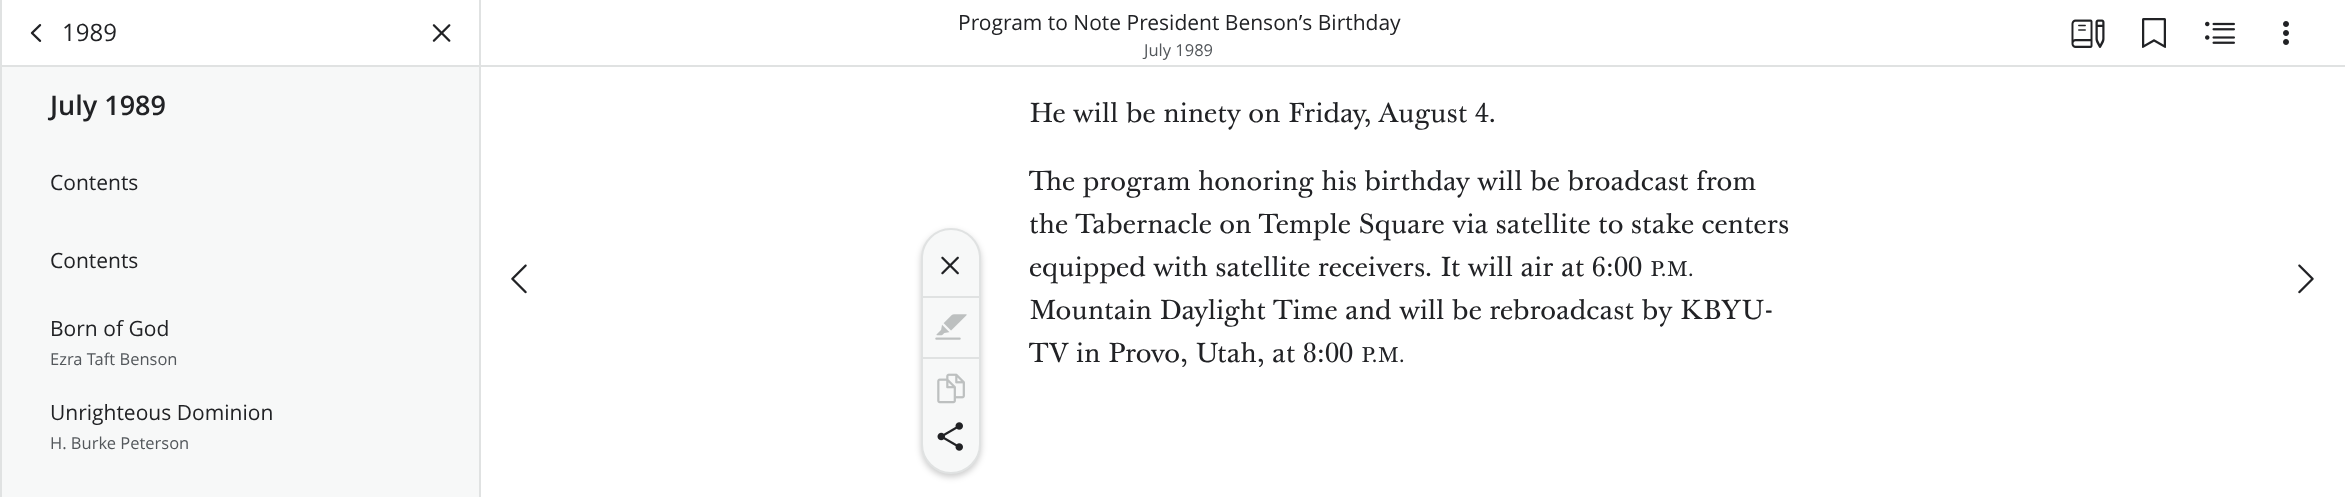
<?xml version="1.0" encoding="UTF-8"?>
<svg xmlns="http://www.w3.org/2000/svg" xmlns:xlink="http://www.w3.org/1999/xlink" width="2345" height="497">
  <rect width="100%" height="100%" fill="#ffffff" />
  <rect x="2" y="67" width="477" height="430" fill="#f7f8f8" />
  <rect x="479" width="2" height="497" fill="#e0e2e2" />
  <rect width="2" height="497" fill="#e0e2e2" />
  <rect x="2" y="65" width="477" height="2" fill="#e0e2e2" />
  <image x="30" y="24" width="12" height="18" xlink:href="image1.png" />
  <image x="432" y="24" width="19" height="18" xlink:href="image2.png" />
  <rect x="481" y="65" width="1864" height="2" fill="#e0e2e2" />
  <image x="2071" y="19" width="34" height="29" xlink:href="image3.png" />
  <image x="2142" y="18" width="24" height="30" xlink:href="image4.png" />
  <image x="2205" y="21" width="30" height="23" xlink:href="image5.png" />
  <image x="2283" y="21" width="6" height="24" xlink:href="image6.png" />
  <image x="511" y="264" width="16" height="30" xlink:href="image7.png" />
  <rect x="921" y="231" width="60" height="246" rx="30" fill="#000000" fill-opacity="0.2" filter="blur(3px)" />
  <rect x="922" y="229" width="58" height="244" rx="29" fill="#f7f8f8" stroke="#e0e2e2" stroke-width="2" />
  <image x="941" y="256" width="18" height="19" xlink:href="image8.png" />
  <rect x="923" y="296" width="57" height="2" fill="#e0e2e2" />
  <image x="935" y="314" width="32" height="26" xlink:href="image9.png" />
  <rect x="923" y="357" width="57" height="2" fill="#e0e2e2" />
  <image x="937" y="373" width="28" height="31" xlink:href="image10.png" />
  <image x="937" y="422" width="26" height="29" xlink:href="image11.png" />
  <image x="2298" y="264" width="16" height="30" xlink:href="image12.png" />
  <text x="62" y="41" style="font-family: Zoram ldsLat; font-size: 24px; fill: #212225">1989</text>
  <text x="50" y="115" style="font-family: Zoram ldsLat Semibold; font-size: 27px; font-weight: 600; fill: #212225">July 1989</text>
  <text x="50" y="190" style="font-family: Zoram ldsLat; font-size: 21px; fill: #212225">Contents</text>
  <text x="50" y="268" style="font-family: Zoram ldsLat; font-size: 21px; fill: #212225">Contents</text>
  <text x="50" y="336" style="font-family: Zoram ldsLat; font-size: 21px; fill: #212225">Born of God</text>
  <text x="50" y="365" style="font-family: Zoram ldsLat; font-size: 16.5px; fill: #53575b">Ezra Taft Benson</text>
  <text x="50" y="420" style="font-family: Zoram ldsLat; font-size: 21px; fill: #212225">Unrighteous Dominion</text>
  <text x="50" y="449" style="font-family: Zoram ldsLat; font-size: 16.5px; fill: #53575b">H. Burke Peterson</text>
  <text x="958" y="30" style="font-family: Zoram ldsLat; font-size: 21px; fill: #212225">Program to Note President Benson’s Birthday</text>
  <text x="1144" y="56" style="font-family: Zoram ldsLat; font-size: 16.5px; fill: #53575b">July 1989</text>
  <text x="1029" y="122" style="font-family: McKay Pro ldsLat; font-size: 27px; fill: #212225">He will be ninety on Friday, August 4.</text>
  <text x="1029" y="190" style="font-family: McKay Pro ldsLat; font-size: 27px; fill: #212225">The program honoring his birthday will be broadcast from</text>
  <text x="1029" y="233" style="font-family: McKay Pro ldsLat; font-size: 27px; fill: #212225">the Tabernacle on Temple Square via satellite to stake centers</text>
  <text x="1029" y="276" style="font-family: McKay Pro ldsLat; font-size: 27px; fill: #212225">equipped with satellite receivers. It will air at 6:00</text>
  <text x="1650" y="276" style="font-family: McKay Pro ldsLat; font-size: 21px; fill: #212225">P.M.</text>
  <text x="1029" y="319" style="font-family: McKay Pro ldsLat; font-size: 27px; fill: #212225">Mountain Daylight Time and will be rebroadcast by KBYU-</text>
  <text x="1029" y="362" style="font-family: McKay Pro ldsLat; font-size: 27px; fill: #212225">TV in Provo, Utah, at 8:00</text>
  <text x="1361" y="362" style="font-family: McKay Pro ldsLat; font-size: 21px; fill: #212225">P.M.</text>
</svg>
